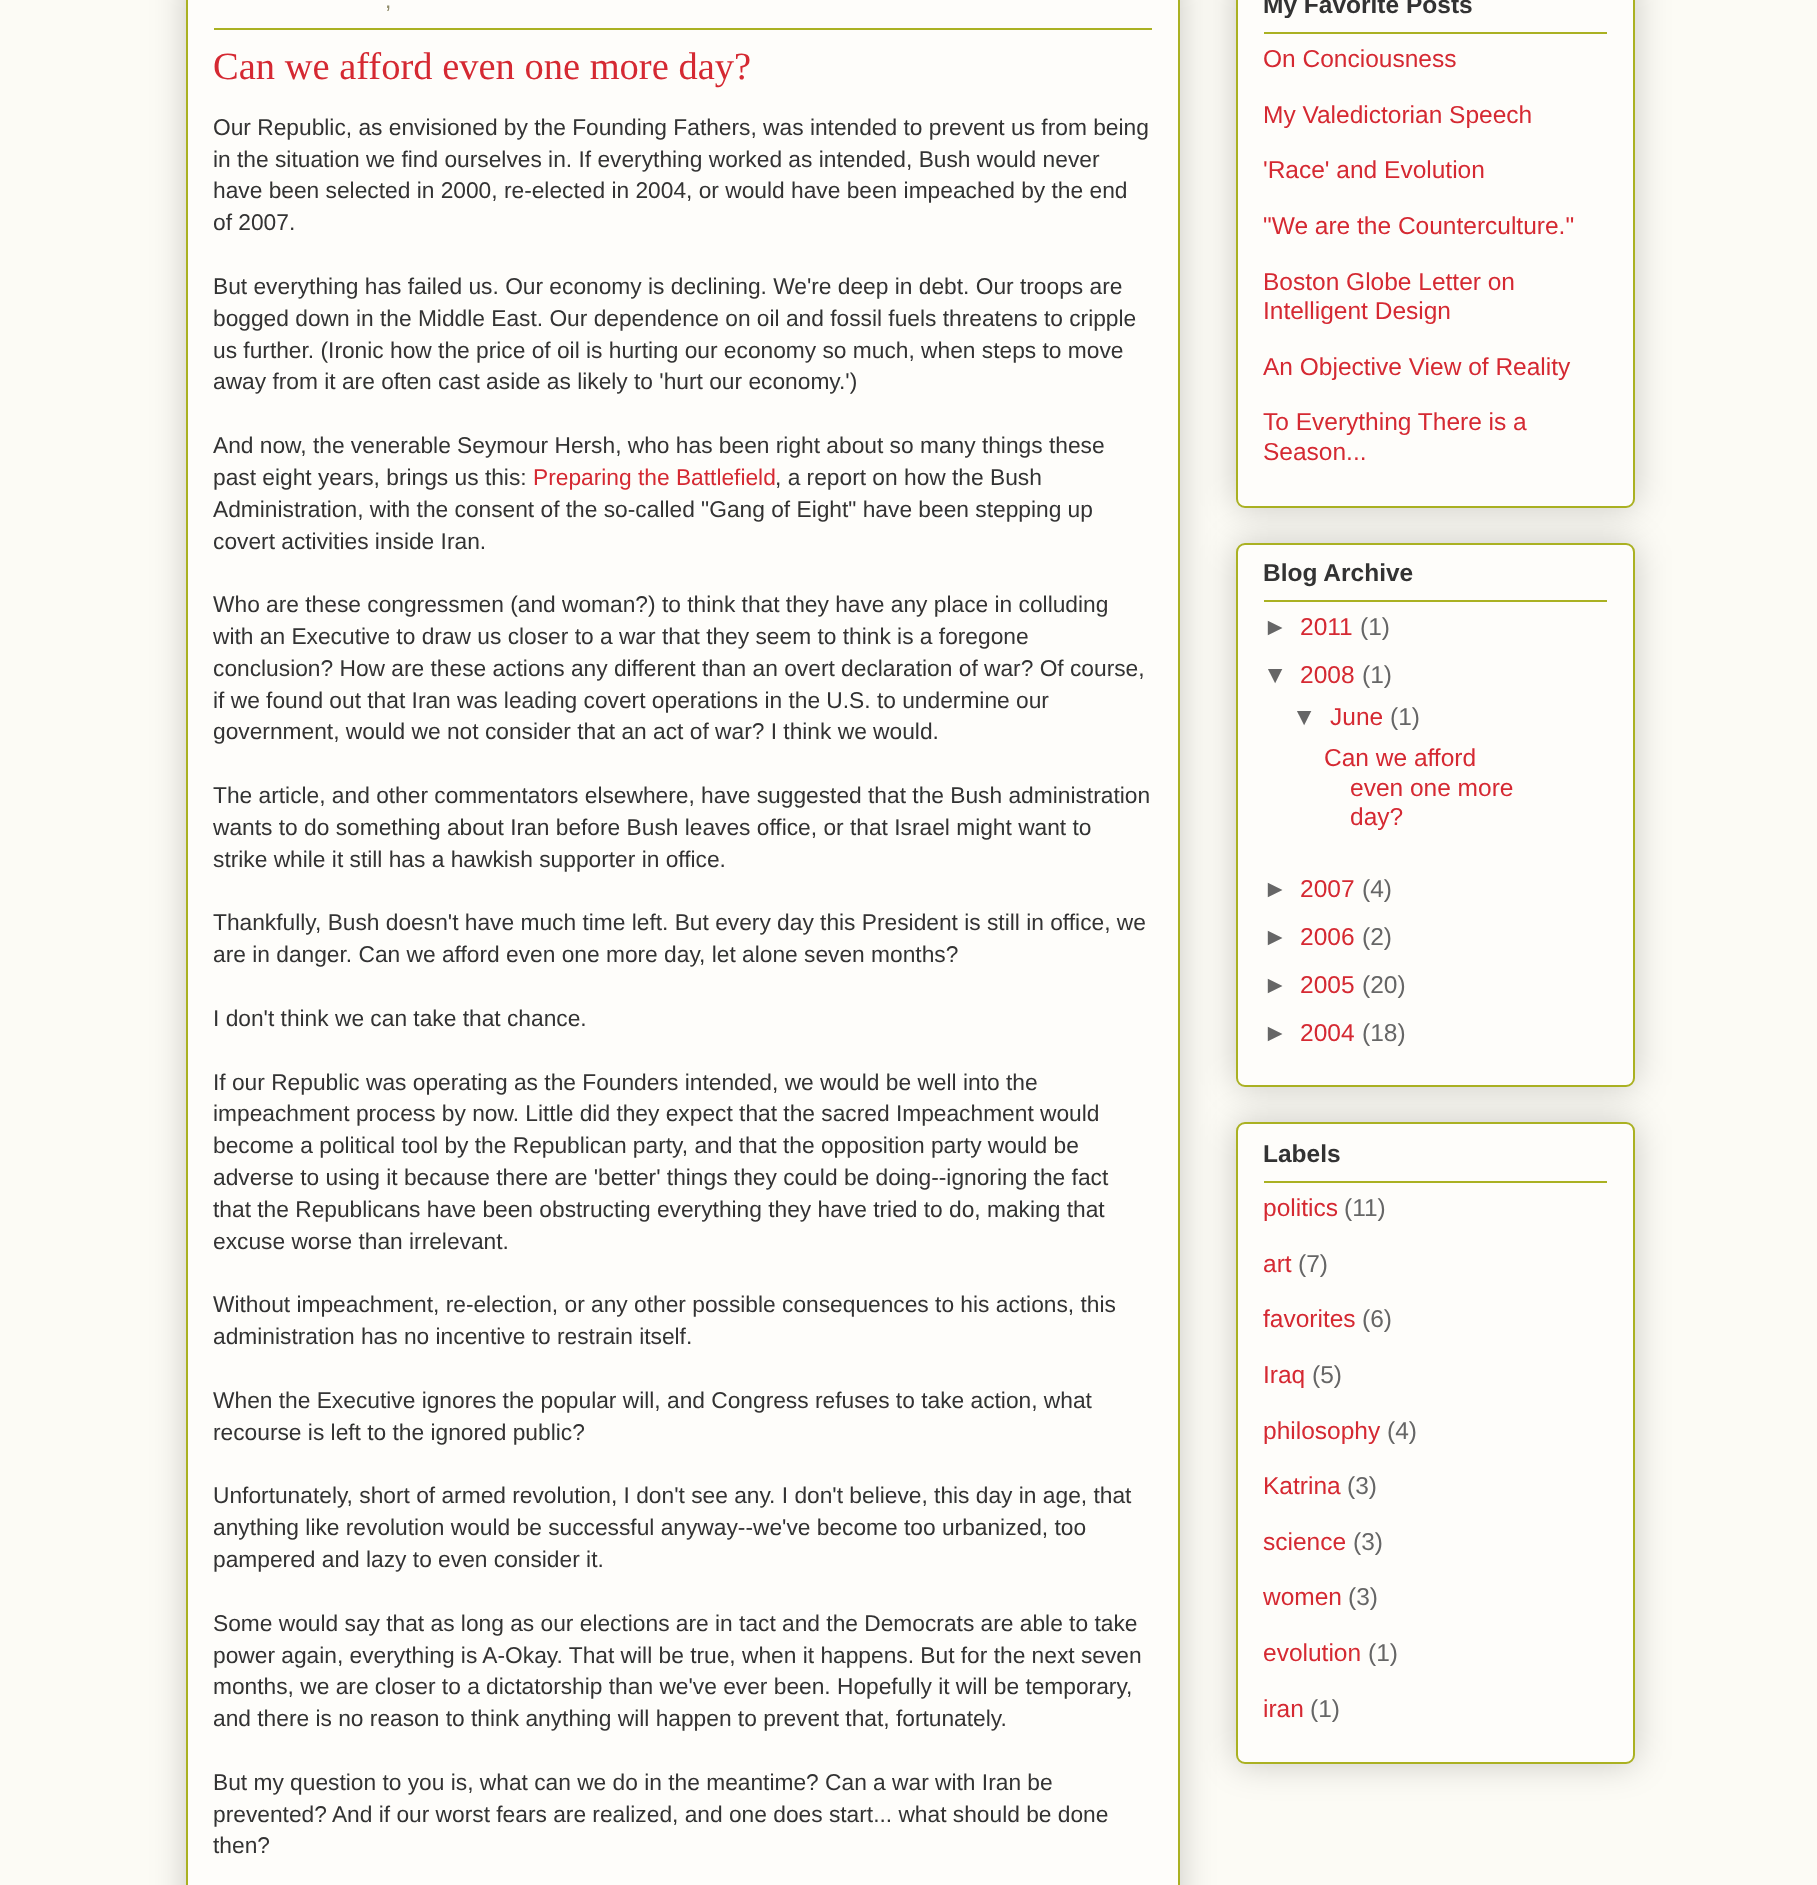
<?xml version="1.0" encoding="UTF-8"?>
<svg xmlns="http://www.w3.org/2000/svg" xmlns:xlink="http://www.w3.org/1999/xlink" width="1817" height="1885">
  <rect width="100%" height="100%" fill="#fcfbf5" />
  <rect x="186" y="-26" width="994" height="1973" rx="9" fill="#000000" fill-opacity="0.2" filter="blur(17.5px)" />
  <rect x="187" y="-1" width="992" height="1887" fill="#fefdfa" stroke="#aab122" stroke-width="2" />
  <rect x="214" y="28" width="938" height="2" fill="#aab122" />
  <rect x="1236" y="-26" width="399" height="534" rx="9" fill="#000000" fill-opacity="0.2" filter="blur(17.5px)" />
  <rect x="1237" y="-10" width="397" height="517" rx="8" fill="#fefdfa" stroke="#aab122" stroke-width="2" />
  <rect x="1264" y="32" width="343" height="2" fill="#aab122" />
  <rect x="1236" y="543" width="399" height="544" rx="9" fill="#000000" fill-opacity="0.2" filter="blur(17.5px)" />
  <rect x="1237" y="544" width="397" height="542" rx="8" fill="#fefdfa" stroke="#aab122" stroke-width="2" />
  <rect x="1264" y="600" width="343" height="2" fill="#aab122" />
  <rect x="1236" y="1122" width="399" height="642" rx="9" fill="#000000" fill-opacity="0.2" filter="blur(17.5px)" />
  <rect x="1237" y="1123" width="397" height="640" rx="8" fill="#fefdfa" stroke="#aab122" stroke-width="2" />
  <rect x="1264" y="1181" width="343" height="2" fill="#aab122" />
  <text x="385" y="8" style="font-family: Liberation Sans; font-size: 22.75px; fill: #908c6a">,</text>
  <text x="213" y="79" style="font-family: Liberation Serif; font-size: 38.5px; fill: #d52932">Can we afford even one more day?</text>
  <text x="213" y="135" style="font-family: Liberation Sans; font-size: 22.75px; fill: #333333">Our Republic, as envisioned by the Founding Fathers, was intended to prevent us from being</text>
  <text x="213" y="167" style="font-family: Liberation Sans; font-size: 22.75px; fill: #333333">in the situation we find ourselves in. If everything worked as intended, Bush would never</text>
  <text x="213" y="198" style="font-family: Liberation Sans; font-size: 22.75px; fill: #333333">have been selected in 2000, re-elected in 2004, or would have been impeached by the end</text>
  <text x="213" y="230" style="font-family: Liberation Sans; font-size: 22.75px; fill: #333333">of 2007.</text>
  <text x="213" y="294" style="font-family: Liberation Sans; font-size: 22.75px; fill: #333333">But everything has failed us. Our economy is declining. We're deep in debt. Our troops are</text>
  <text x="213" y="326" style="font-family: Liberation Sans; font-size: 22.75px; fill: #333333">bogged down in the Middle East. Our dependence on oil and fossil fuels threatens to cripple</text>
  <text x="213" y="358" style="font-family: Liberation Sans; font-size: 22.75px; fill: #333333">us further. (Ironic how the price of oil is hurting our economy so much, when steps to move</text>
  <text x="213" y="389" style="font-family: Liberation Sans; font-size: 22.75px; fill: #333333">away from it are often cast aside as likely to 'hurt our economy.')</text>
  <text x="213" y="453" style="font-family: Liberation Sans; font-size: 22.75px; fill: #333333">And now, the venerable Seymour Hersh, who has been right about so many things these</text>
  <text x="213" y="485" style="font-family: Liberation Sans; font-size: 22.75px; fill: #333333">past eight years, brings us this:</text>
  <text x="533" y="485" style="font-family: Liberation Sans; font-size: 22.75px; fill: #d52932">Preparing the Battlefield</text>
  <text x="775" y="485" style="font-family: Liberation Sans; font-size: 22.75px; fill: #333333">, a report on how the Bush</text>
  <text x="213" y="517" style="font-family: Liberation Sans; font-size: 22.75px; fill: #333333">Administration, with the consent of the so-called "Gang of Eight" have been stepping up</text>
  <text x="213" y="549" style="font-family: Liberation Sans; font-size: 22.75px; fill: #333333">covert activities inside Iran.</text>
  <text x="213" y="612" style="font-family: Liberation Sans; font-size: 22.75px; fill: #333333">Who are these congressmen (and woman?) to think that they have any place in colluding</text>
  <text x="213" y="644" style="font-family: Liberation Sans; font-size: 22.75px; fill: #333333">with an Executive to draw us closer to a war that they seem to think is a foregone</text>
  <text x="213" y="676" style="font-family: Liberation Sans; font-size: 22.75px; fill: #333333">conclusion? How are these actions any different than an overt declaration of war? Of course,</text>
  <text x="213" y="708" style="font-family: Liberation Sans; font-size: 22.75px; fill: #333333">if we found out that Iran was leading covert operations in the U.S. to undermine our</text>
  <text x="213" y="739" style="font-family: Liberation Sans; font-size: 22.75px; fill: #333333">government, would we not consider that an act of war? I think we would.</text>
  <text x="213" y="803" style="font-family: Liberation Sans; font-size: 22.75px; fill: #333333">The article, and other commentators elsewhere, have suggested that the Bush administration</text>
  <text x="213" y="835" style="font-family: Liberation Sans; font-size: 22.75px; fill: #333333">wants to do something about Iran before Bush leaves office, or that Israel might want to</text>
  <text x="213" y="867" style="font-family: Liberation Sans; font-size: 22.75px; fill: #333333">strike while it still has a hawkish supporter in office.</text>
  <text x="213" y="930" style="font-family: Liberation Sans; font-size: 22.75px; fill: #333333">Thankfully, Bush doesn't have much time left. But every day this President is still in office, we</text>
  <text x="213" y="962" style="font-family: Liberation Sans; font-size: 22.75px; fill: #333333">are in danger. Can we afford even one more day, let alone seven months?</text>
  <text x="213" y="1026" style="font-family: Liberation Sans; font-size: 22.75px; fill: #333333">I don't think we can take that chance.</text>
  <text x="213" y="1090" style="font-family: Liberation Sans; font-size: 22.75px; fill: #333333">If our Republic was operating as the Founders intended, we would be well into the</text>
  <text x="213" y="1121" style="font-family: Liberation Sans; font-size: 22.75px; fill: #333333">impeachment process by now. Little did they expect that the sacred Impeachment would</text>
  <text x="213" y="1153" style="font-family: Liberation Sans; font-size: 22.75px; fill: #333333">become a political tool by the Republican party, and that the opposition party would be</text>
  <text x="213" y="1185" style="font-family: Liberation Sans; font-size: 22.75px; fill: #333333">adverse to using it because there are 'better' things they could be doing--ignoring the fact</text>
  <text x="213" y="1217" style="font-family: Liberation Sans; font-size: 22.75px; fill: #333333">that the Republicans have been obstructing everything they have tried to do, making that</text>
  <text x="213" y="1249" style="font-family: Liberation Sans; font-size: 22.75px; fill: #333333">excuse worse than irrelevant.</text>
  <text x="213" y="1312" style="font-family: Liberation Sans; font-size: 22.75px; fill: #333333">Without impeachment, re-election, or any other possible consequences to his actions, this</text>
  <text x="213" y="1344" style="font-family: Liberation Sans; font-size: 22.75px; fill: #333333">administration has no incentive to restrain itself.</text>
  <text x="213" y="1408" style="font-family: Liberation Sans; font-size: 22.75px; fill: #333333">When the Executive ignores the popular will, and Congress refuses to take action, what</text>
  <text x="213" y="1440" style="font-family: Liberation Sans; font-size: 22.75px; fill: #333333">recourse is left to the ignored public?</text>
  <text x="213" y="1503" style="font-family: Liberation Sans; font-size: 22.75px; fill: #333333">Unfortunately, short of armed revolution, I don't see any. I don't believe, this day in age, that</text>
  <text x="213" y="1535" style="font-family: Liberation Sans; font-size: 22.75px; fill: #333333">anything like revolution would be successful anyway--we've become too urbanized, too</text>
  <text x="213" y="1567" style="font-family: Liberation Sans; font-size: 22.75px; fill: #333333">pampered and lazy to even consider it.</text>
  <text x="213" y="1631" style="font-family: Liberation Sans; font-size: 22.75px; fill: #333333">Some would say that as long as our elections are in tact and the Democrats are able to take</text>
  <text x="213" y="1663" style="font-family: Liberation Sans; font-size: 22.75px; fill: #333333">power again, everything is A-Okay. That will be true, when it happens. But for the next seven</text>
  <text x="213" y="1694" style="font-family: Liberation Sans; font-size: 22.75px; fill: #333333">months, we are closer to a dictatorship than we've ever been. Hopefully it will be temporary,</text>
  <text x="213" y="1726" style="font-family: Liberation Sans; font-size: 22.75px; fill: #333333">and there is no reason to think anything will happen to prevent that, fortunately.</text>
  <text x="213" y="1790" style="font-family: Liberation Sans; font-size: 22.75px; fill: #333333">But my question to you is, what can we do in the meantime? Can a war with Iran be</text>
  <text x="213" y="1822" style="font-family: Liberation Sans; font-size: 22.75px; fill: #333333">prevented? And if our worst fears are realized, and one does start... what should be done</text>
  <text x="213" y="1853" style="font-family: Liberation Sans; font-size: 22.75px; fill: #333333">then?</text>
  <text x="1263" y="13" style="font-family: Liberation Sans; font-size: 24.5px; font-weight: bold; fill: #333333">My Favorite Posts</text>
  <text x="1263" y="67" style="font-family: Liberation Sans; font-size: 24.5px; fill: #d52932">On Conciousness</text>
  <text x="1263" y="123" style="font-family: Liberation Sans; font-size: 24.5px; fill: #d52932">My Valedictorian Speech</text>
  <text x="1263" y="178" style="font-family: Liberation Sans; font-size: 24.5px; fill: #d52932">'Race' and Evolution</text>
  <text x="1263" y="234" style="font-family: Liberation Sans; font-size: 24.5px; fill: #d52932">"We are the Counterculture."</text>
  <text x="1263" y="290" style="font-family: Liberation Sans; font-size: 24.5px; fill: #d52932">Boston Globe Letter on</text>
  <text x="1263" y="319" style="font-family: Liberation Sans; font-size: 24.5px; fill: #d52932">Intelligent Design</text>
  <text x="1263" y="375" style="font-family: Liberation Sans; font-size: 24.5px; fill: #d52932">An Objective View of Reality</text>
  <text x="1263" y="430" style="font-family: Liberation Sans; font-size: 24.5px; fill: #d52932">To Everything There is a</text>
  <text x="1263" y="460" style="font-family: Liberation Sans; font-size: 24.5px; fill: #d52932">Season...</text>
  <text x="1263" y="581" style="font-family: Liberation Sans; font-size: 24.5px; font-weight: bold; fill: #333333">Blog Archive</text>
  <text x="1263" y="635" style="font-family: Liberation Sans; font-size: 24.5px; fill: #666666">►</text>
  <text x="1300" y="635" style="font-family: Liberation Sans; font-size: 24.5px; fill: #d52932">2011</text>
  <text x="1360" y="635" style="font-family: Liberation Sans; font-size: 24.5px; fill: #666666">(1)</text>
  <text x="1263" y="683" style="font-family: Liberation Sans; font-size: 24.5px; fill: #666666">▼</text>
  <text x="1300" y="683" style="font-family: Liberation Sans; font-size: 24.5px; fill: #d52932">2008</text>
  <text x="1362" y="683" style="font-family: Liberation Sans; font-size: 24.5px; fill: #666666">(1)</text>
  <text x="1292" y="725" style="font-family: Liberation Sans; font-size: 24.5px; fill: #666666">▼</text>
  <text x="1330" y="725" style="font-family: Liberation Sans; font-size: 24.5px; fill: #d52932">June</text>
  <text x="1390" y="725" style="font-family: Liberation Sans; font-size: 24.5px; fill: #666666">(1)</text>
  <text x="1324" y="766" style="font-family: Liberation Sans; font-size: 24.5px; fill: #d52932">Can we afford</text>
  <text x="1350" y="796" style="font-family: Liberation Sans; font-size: 24.5px; fill: #d52932">even one more</text>
  <text x="1350" y="825" style="font-family: Liberation Sans; font-size: 24.5px; fill: #d52932">day?</text>
  <text x="1263" y="897" style="font-family: Liberation Sans; font-size: 24.5px; fill: #666666">►</text>
  <text x="1300" y="897" style="font-family: Liberation Sans; font-size: 24.5px; fill: #d52932">2007</text>
  <text x="1362" y="897" style="font-family: Liberation Sans; font-size: 24.5px; fill: #666666">(4)</text>
  <text x="1263" y="945" style="font-family: Liberation Sans; font-size: 24.5px; fill: #666666">►</text>
  <text x="1300" y="945" style="font-family: Liberation Sans; font-size: 24.5px; fill: #d52932">2006</text>
  <text x="1362" y="945" style="font-family: Liberation Sans; font-size: 24.5px; fill: #666666">(2)</text>
  <text x="1263" y="993" style="font-family: Liberation Sans; font-size: 24.5px; fill: #666666">►</text>
  <text x="1300" y="993" style="font-family: Liberation Sans; font-size: 24.5px; fill: #d52932">2005</text>
  <text x="1362" y="993" style="font-family: Liberation Sans; font-size: 24.5px; fill: #666666">(20)</text>
  <text x="1263" y="1041" style="font-family: Liberation Sans; font-size: 24.5px; fill: #666666">►</text>
  <text x="1300" y="1041" style="font-family: Liberation Sans; font-size: 24.5px; fill: #d52932">2004</text>
  <text x="1362" y="1041" style="font-family: Liberation Sans; font-size: 24.5px; fill: #666666">(18)</text>
  <text x="1263" y="1162" style="font-family: Liberation Sans; font-size: 24.5px; font-weight: bold; fill: #333333">Labels</text>
  <text x="1263" y="1216" style="font-family: Liberation Sans; font-size: 24.5px; fill: #d52932">politics</text>
  <text x="1344" y="1216" style="font-family: Liberation Sans; font-size: 24.5px; fill: #666666">(11)</text>
  <text x="1263" y="1272" style="font-family: Liberation Sans; font-size: 24.5px; fill: #d52932">art</text>
  <text x="1298" y="1272" style="font-family: Liberation Sans; font-size: 24.5px; fill: #666666">(7)</text>
  <text x="1263" y="1327" style="font-family: Liberation Sans; font-size: 24.5px; fill: #d52932">favorites</text>
  <text x="1362" y="1327" style="font-family: Liberation Sans; font-size: 24.5px; fill: #666666">(6)</text>
  <text x="1263" y="1383" style="font-family: Liberation Sans; font-size: 24.5px; fill: #d52932">Iraq</text>
  <text x="1312" y="1383" style="font-family: Liberation Sans; font-size: 24.5px; fill: #666666">(5)</text>
  <text x="1263" y="1439" style="font-family: Liberation Sans; font-size: 24.5px; fill: #d52932">philosophy</text>
  <text x="1387" y="1439" style="font-family: Liberation Sans; font-size: 24.5px; fill: #666666">(4)</text>
  <text x="1263" y="1494" style="font-family: Liberation Sans; font-size: 24.5px; fill: #d52932">Katrina</text>
  <text x="1347" y="1494" style="font-family: Liberation Sans; font-size: 24.5px; fill: #666666">(3)</text>
  <text x="1263" y="1550" style="font-family: Liberation Sans; font-size: 24.5px; fill: #d52932">science</text>
  <text x="1353" y="1550" style="font-family: Liberation Sans; font-size: 24.5px; fill: #666666">(3)</text>
  <text x="1263" y="1605" style="font-family: Liberation Sans; font-size: 24.5px; fill: #d52932">women</text>
  <text x="1348" y="1605" style="font-family: Liberation Sans; font-size: 24.5px; fill: #666666">(3)</text>
  <text x="1263" y="1661" style="font-family: Liberation Sans; font-size: 24.5px; fill: #d52932">evolution</text>
  <text x="1368" y="1661" style="font-family: Liberation Sans; font-size: 24.5px; fill: #666666">(1)</text>
  <text x="1263" y="1717" style="font-family: Liberation Sans; font-size: 24.5px; fill: #d52932">iran</text>
  <text x="1310" y="1717" style="font-family: Liberation Sans; font-size: 24.5px; fill: #666666">(1)</text>
</svg>
